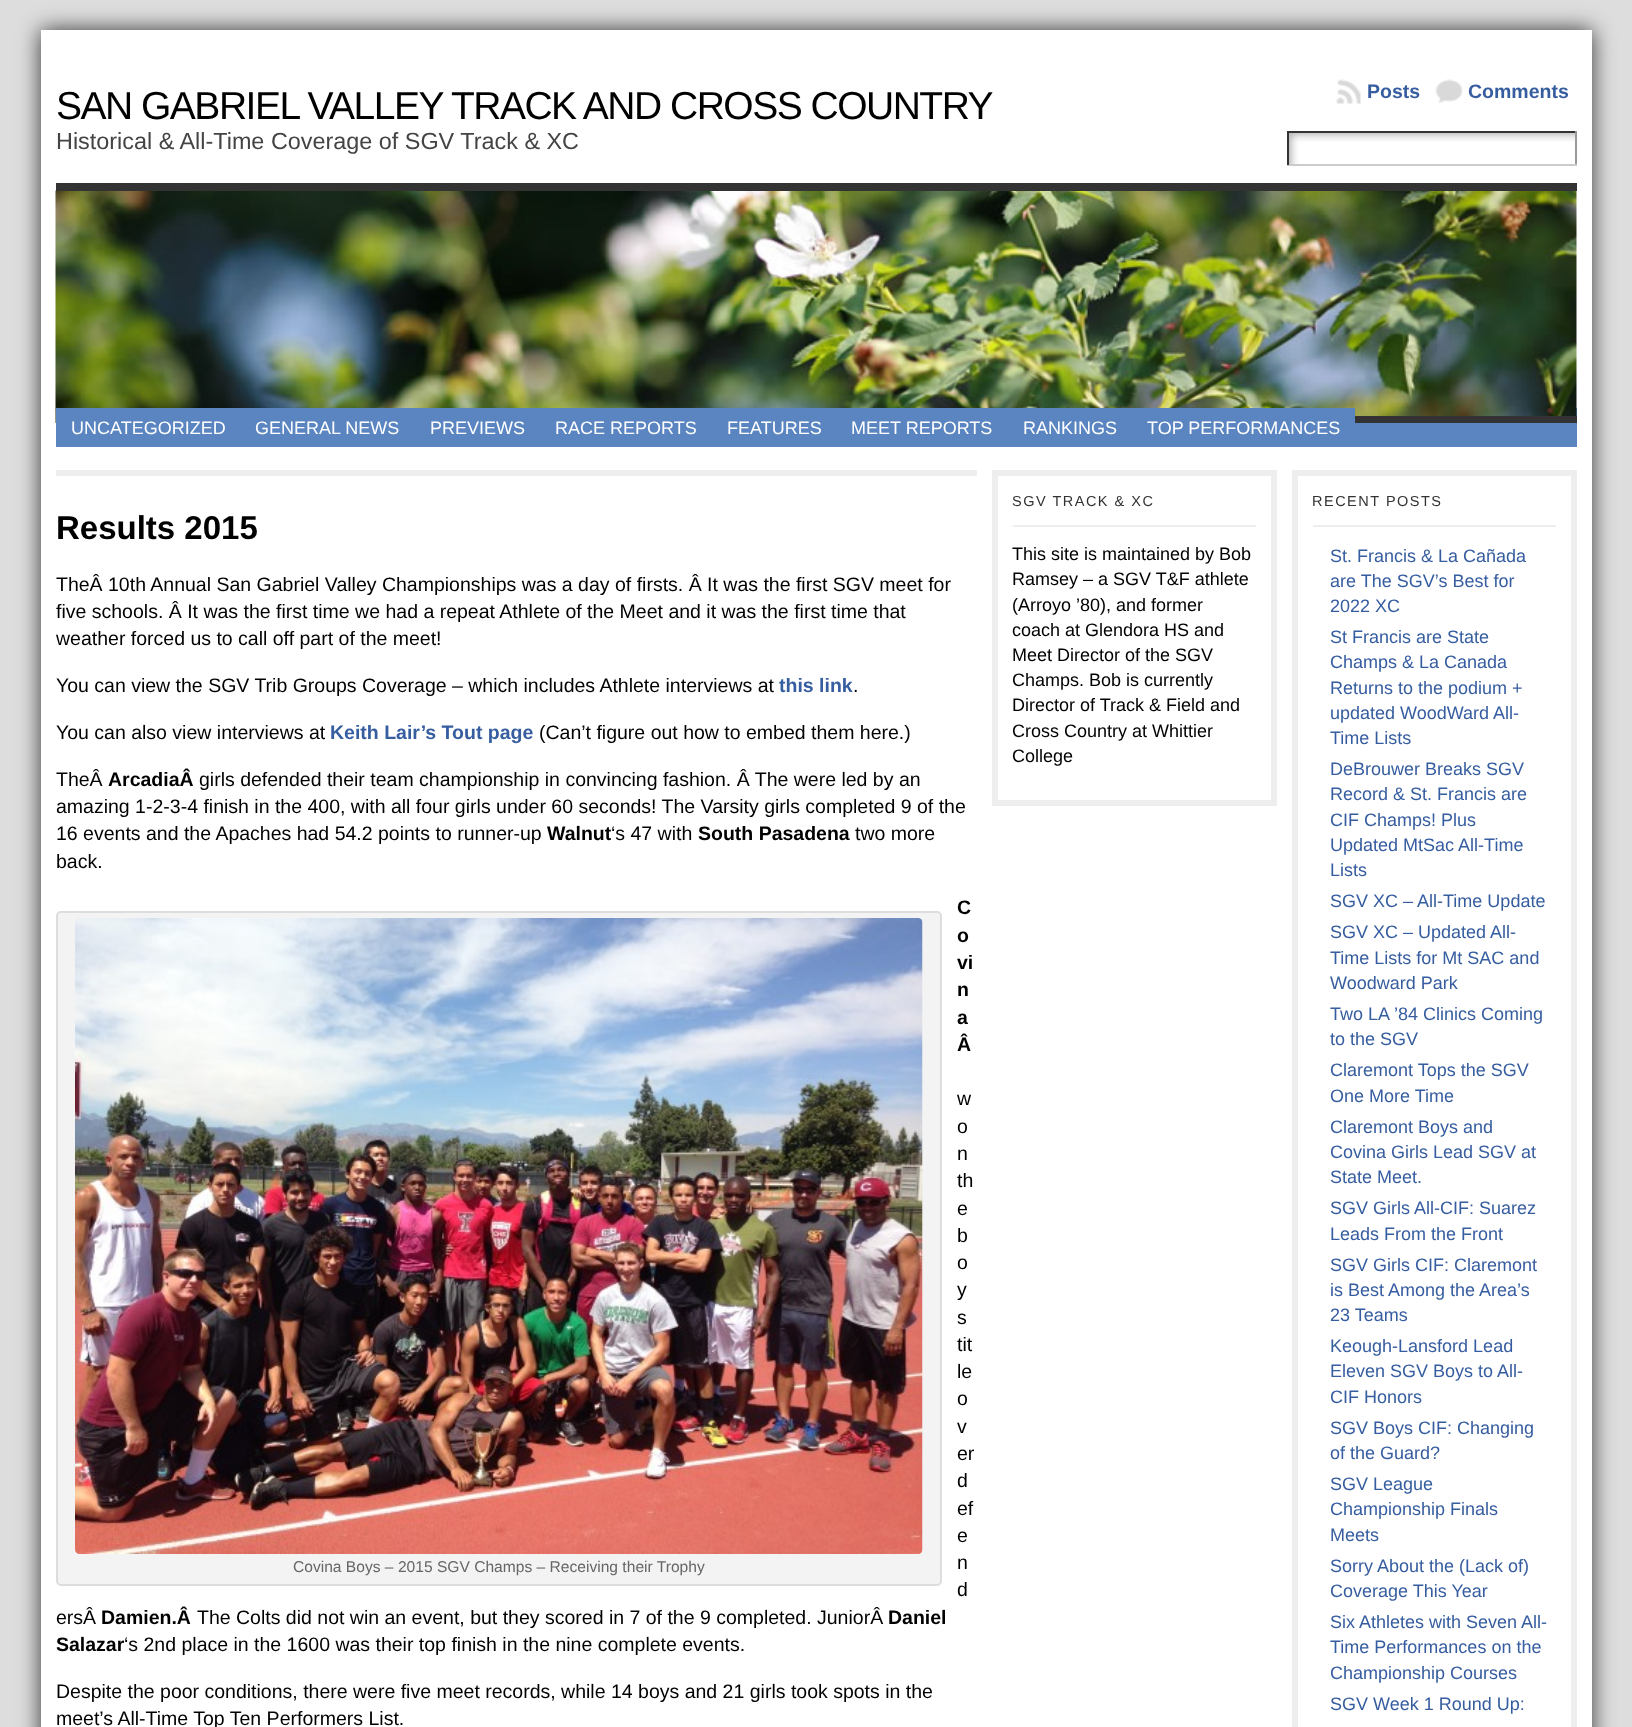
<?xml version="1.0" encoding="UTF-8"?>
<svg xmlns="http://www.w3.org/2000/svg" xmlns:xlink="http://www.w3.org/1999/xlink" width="1632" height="1727">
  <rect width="100%" height="100%" fill="#dddddd" />
  <rect x="41" y="30" width="1551" height="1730" fill="#333333" filter="blur(11px)" />
  <rect x="41" y="30" width="1551" height="1697" fill="#ffffff" />
  <image x="1336" y="79" width="25" height="25" xlink:href="image1.png" />
  <image x="1435" y="79" width="28" height="25" xlink:href="image2.png" />
  <image x="1289" y="133" width="286" height="31" xlink:href="image3.png" />
  <rect x="1287" y="131" width="290" height="2" fill="#333333" />
  <rect x="1575" y="131" width="2" height="34" fill="#999999" />
  <rect x="1287" y="164" width="290" height="2" fill="#cccccc" />
  <rect x="1287" y="131" width="2" height="34" fill="#333333" />
  <rect x="1355" y="408" width="222" height="39" fill="#5a85c1" />
  <image x="55" y="190" width="1522" height="233" xlink:href="image4.png" />
  <rect x="56" y="183" width="1521" height="8" fill="#333333" />
  <rect x="1355" y="416" width="222" height="7" fill="#333333" />
  <rect x="56" y="408" width="1299" height="39" fill="#5a85c1" />
  <rect x="56" y="470" width="921" height="6" fill="#eeeeee" />
  <rect x="57" y="912" width="884" height="673" rx="4" fill="#f3f3f3" stroke="#dddddd" stroke-width="2" />
  <image x="75" y="918" width="848" height="636" xlink:href="image5.png" />
  <rect x="995" y="473" width="279" height="330" fill="none" stroke="#eeeeee" stroke-width="6" />
  <rect x="1013" y="525" width="243" height="2" fill="#eeeeee" />
  <rect x="1295" y="473" width="279" height="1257" fill="none" stroke="#eeeeee" stroke-width="6" />
  <rect x="1313" y="525" width="243" height="2" fill="#eeeeee" />
  <text x="56" y="119" style="font-family: Liberation Sans; font-size: 39px; letter-spacing: -1.5px; fill: #000000">SAN GABRIEL VALLEY TRACK AND CROSS COUNTRY</text>
  <text x="56" y="149" style="font-family: Liberation Sans; font-size: 23.4px; fill: #444444">Historical &amp; All-Time Coverage of SGV Track &amp; XC</text>
  <text x="1367" y="98" style="font-family: Liberation Sans; font-size: 19.5px; font-weight: bold; fill: #365da0">Posts</text>
  <text x="1468" y="98" style="font-family: Liberation Sans; font-size: 19.5px; font-weight: bold; fill: #365da0">Comments</text>
  <text x="71" y="434" style="font-family: Liberation Sans; font-size: 18px; fill: #ffffff">UNCATEGORIZED</text>
  <text x="255" y="434" style="font-family: Liberation Sans; font-size: 18px; fill: #ffffff">GENERAL NEWS</text>
  <text x="430" y="434" style="font-family: Liberation Sans; font-size: 18px; fill: #ffffff">PREVIEWS</text>
  <text x="555" y="434" style="font-family: Liberation Sans; font-size: 18px; fill: #ffffff">RACE REPORTS</text>
  <text x="727" y="434" style="font-family: Liberation Sans; font-size: 18px; fill: #ffffff">FEATURES</text>
  <text x="851" y="434" style="font-family: Liberation Sans; font-size: 18px; fill: #ffffff">MEET REPORTS</text>
  <text x="1023" y="434" style="font-family: Liberation Sans; font-size: 18px; fill: #ffffff">RANKINGS</text>
  <text x="1147" y="434" style="font-family: Liberation Sans; font-size: 18px; fill: #ffffff">TOP PERFORMANCES</text>
  <text x="56" y="539" style="font-family: Liberation Sans; font-size: 33px; font-weight: bold; fill: #000000">Results 2015</text>
  <text x="56" y="591" style="font-family: Liberation Sans; font-size: 19.5px; fill: #000000">TheÂ 10th Annual San Gabriel Valley Championships was a day of firsts. Â It was the first SGV meet for</text>
  <text x="56" y="618" style="font-family: Liberation Sans; font-size: 19.5px; fill: #000000">five schools. Â It was the first time we had a repeat Athlete of the Meet and it was the first time that</text>
  <text x="56" y="645" style="font-family: Liberation Sans; font-size: 19.5px; fill: #000000">weather forced us to call off part of the meet!</text>
  <text x="56" y="692" style="font-family: Liberation Sans; font-size: 19.5px; fill: #000000">You can view the SGV Trib Groups Coverage – which includes Athlete interviews at</text>
  <text x="779" y="692" style="font-family: Liberation Sans; font-size: 19.5px; font-weight: bold; fill: #365da0">this link</text>
  <text x="853" y="692" style="font-family: Liberation Sans; font-size: 19.5px; fill: #000000">.</text>
  <text x="56" y="739" style="font-family: Liberation Sans; font-size: 19.5px; fill: #000000">You can also view interviews at</text>
  <text x="330" y="739" style="font-family: Liberation Sans; font-size: 19.5px; font-weight: bold; fill: #365da0">Keith Lair’s Tout page</text>
  <text x="539" y="739" style="font-family: Liberation Sans; font-size: 19.5px; fill: #000000">(Can’t figure out how to embed them here.)</text>
  <text x="56" y="786" style="font-family: Liberation Sans; font-size: 19.5px; fill: #000000">TheÂ</text>
  <text x="108" y="786" style="font-family: Liberation Sans; font-size: 19.5px; font-weight: bold; fill: #000000">ArcadiaÂ</text>
  <text x="199" y="786" style="font-family: Liberation Sans; font-size: 19.5px; fill: #000000">girls defended their team championship in convincing fashion. Â The were led by an</text>
  <text x="56" y="813" style="font-family: Liberation Sans; font-size: 19.5px; fill: #000000">amazing 1-2-3-4 finish in the 400, with all four girls under 60 seconds! The Varsity girls completed 9 of the</text>
  <text x="56" y="840" style="font-family: Liberation Sans; font-size: 19.5px; fill: #000000">16 events and the Apaches had 54.2 points to runner-up</text>
  <text x="547" y="840" style="font-family: Liberation Sans; font-size: 19.5px; font-weight: bold; fill: #000000">Walnut</text>
  <text x="611" y="840" style="font-family: Liberation Sans; font-size: 19.5px; fill: #000000">‘s 47 with</text>
  <text x="698" y="840" style="font-family: Liberation Sans; font-size: 19.5px; font-weight: bold; fill: #000000">South Pasadena</text>
  <text x="855" y="840" style="font-family: Liberation Sans; font-size: 19.5px; fill: #000000">two more</text>
  <text x="56" y="868" style="font-family: Liberation Sans; font-size: 19.5px; fill: #000000">back.</text>
  <text x="957" y="914" style="font-family: Liberation Sans; font-size: 19.5px; font-weight: bold; fill: #000000">C</text>
  <text x="957" y="942" style="font-family: Liberation Sans; font-size: 19.5px; font-weight: bold; fill: #000000">o</text>
  <text x="957" y="969" style="font-family: Liberation Sans; font-size: 19.5px; font-weight: bold; fill: #000000">vi</text>
  <text x="957" y="996" style="font-family: Liberation Sans; font-size: 19.5px; font-weight: bold; fill: #000000">n</text>
  <text x="957" y="1024" style="font-family: Liberation Sans; font-size: 19.5px; font-weight: bold; fill: #000000">a</text>
  <text x="957" y="1051" style="font-family: Liberation Sans; font-size: 19.5px; font-weight: bold; fill: #000000">Â</text>
  <text x="957" y="1105" style="font-family: Liberation Sans; font-size: 19.5px; fill: #000000">w</text>
  <text x="957" y="1133" style="font-family: Liberation Sans; font-size: 19.5px; fill: #000000">o</text>
  <text x="957" y="1160" style="font-family: Liberation Sans; font-size: 19.5px; fill: #000000">n</text>
  <text x="957" y="1187" style="font-family: Liberation Sans; font-size: 19.5px; fill: #000000">th</text>
  <text x="957" y="1215" style="font-family: Liberation Sans; font-size: 19.5px; fill: #000000">e</text>
  <text x="957" y="1242" style="font-family: Liberation Sans; font-size: 19.5px; fill: #000000">b</text>
  <text x="957" y="1269" style="font-family: Liberation Sans; font-size: 19.5px; fill: #000000">o</text>
  <text x="957" y="1296" style="font-family: Liberation Sans; font-size: 19.5px; fill: #000000">y</text>
  <text x="957" y="1324" style="font-family: Liberation Sans; font-size: 19.5px; fill: #000000">s</text>
  <text x="957" y="1351" style="font-family: Liberation Sans; font-size: 19.5px; fill: #000000">tit</text>
  <text x="957" y="1378" style="font-family: Liberation Sans; font-size: 19.5px; fill: #000000">le</text>
  <text x="957" y="1405" style="font-family: Liberation Sans; font-size: 19.5px; fill: #000000">o</text>
  <text x="957" y="1433" style="font-family: Liberation Sans; font-size: 19.5px; fill: #000000">v</text>
  <text x="957" y="1460" style="font-family: Liberation Sans; font-size: 19.5px; fill: #000000">er</text>
  <text x="957" y="1487" style="font-family: Liberation Sans; font-size: 19.5px; fill: #000000">d</text>
  <text x="957" y="1515" style="font-family: Liberation Sans; font-size: 19.5px; fill: #000000">ef</text>
  <text x="957" y="1542" style="font-family: Liberation Sans; font-size: 19.5px; fill: #000000">e</text>
  <text x="957" y="1569" style="font-family: Liberation Sans; font-size: 19.5px; fill: #000000">n</text>
  <text x="957" y="1596" style="font-family: Liberation Sans; font-size: 19.5px; fill: #000000">d</text>
  <text x="56" y="1624" style="font-family: Liberation Sans; font-size: 19.5px; fill: #000000">ersÂ</text>
  <text x="101" y="1624" style="font-family: Liberation Sans; font-size: 19.5px; font-weight: bold; fill: #000000">Damien.Â</text>
  <text x="197" y="1624" style="font-family: Liberation Sans; font-size: 19.5px; fill: #000000">The Colts did not win an event, but they scored in 7 of the 9 completed. JuniorÂ</text>
  <text x="888" y="1624" style="font-family: Liberation Sans; font-size: 19.5px; font-weight: bold; fill: #000000">Daniel</text>
  <text x="56" y="1651" style="font-family: Liberation Sans; font-size: 19.5px; font-weight: bold; fill: #000000">Salazar</text>
  <text x="124" y="1651" style="font-family: Liberation Sans; font-size: 19.5px; fill: #000000">‘s 2nd place in the 1600 was their top finish in the nine complete events.</text>
  <text x="293" y="1572" style="font-family: Liberation Sans; font-size: 15.6px; fill: #666666">Covina Boys – 2015 SGV Champs – Receiving their Trophy</text>
  <text x="56" y="1698" style="font-family: Liberation Sans; font-size: 19.5px; fill: #000000">Despite the poor conditions, there were five meet records, while 14 boys and 21 girls took spots in the</text>
  <text x="56" y="1725" style="font-family: Liberation Sans; font-size: 19.5px; fill: #000000">meet’s All-Time Top Ten Performers List.</text>
  <text x="1012" y="506" style="font-family: Liberation Sans; font-size: 14.5px; letter-spacing: 1.5px; fill: #333333">SGV TRACK &amp; XC</text>
  <text x="1012" y="560" style="font-family: Liberation Sans; font-size: 18px; fill: #000000">This site is maintained by Bob</text>
  <text x="1012" y="585" style="font-family: Liberation Sans; font-size: 18px; fill: #000000">Ramsey – a SGV T&amp;F athlete</text>
  <text x="1012" y="611" style="font-family: Liberation Sans; font-size: 18px; fill: #000000">(Arroyo ’80), and former</text>
  <text x="1012" y="636" style="font-family: Liberation Sans; font-size: 18px; fill: #000000">coach at Glendora HS and</text>
  <text x="1012" y="661" style="font-family: Liberation Sans; font-size: 18px; fill: #000000">Meet Director of the SGV</text>
  <text x="1012" y="686" style="font-family: Liberation Sans; font-size: 18px; fill: #000000">Champs. Bob is currently</text>
  <text x="1012" y="711" style="font-family: Liberation Sans; font-size: 18px; fill: #000000">Director of Track &amp; Field and</text>
  <text x="1012" y="737" style="font-family: Liberation Sans; font-size: 18px; fill: #000000">Cross Country at Whittier</text>
  <text x="1012" y="762" style="font-family: Liberation Sans; font-size: 18px; fill: #000000">College</text>
  <text x="1312" y="506" style="font-family: Liberation Sans; font-size: 14.5px; letter-spacing: 1.5px; fill: #333333">RECENT POSTS</text>
  <text x="1330" y="562" style="font-family: Liberation Sans; font-size: 18px; fill: #365da0">St. Francis &amp; La Cañada</text>
  <text x="1330" y="587" style="font-family: Liberation Sans; font-size: 18px; fill: #365da0">are The SGV’s Best for</text>
  <text x="1330" y="612" style="font-family: Liberation Sans; font-size: 18px; fill: #365da0">2022 XC</text>
  <text x="1330" y="643" style="font-family: Liberation Sans; font-size: 18px; fill: #365da0">St Francis are State</text>
  <text x="1330" y="668" style="font-family: Liberation Sans; font-size: 18px; fill: #365da0">Champs &amp; La Canada</text>
  <text x="1330" y="694" style="font-family: Liberation Sans; font-size: 18px; fill: #365da0">Returns to the podium +</text>
  <text x="1330" y="719" style="font-family: Liberation Sans; font-size: 18px; fill: #365da0">updated WoodWard All-</text>
  <text x="1330" y="744" style="font-family: Liberation Sans; font-size: 18px; fill: #365da0">Time Lists</text>
  <text x="1330" y="775" style="font-family: Liberation Sans; font-size: 18px; fill: #365da0">DeBrouwer Breaks SGV</text>
  <text x="1330" y="800" style="font-family: Liberation Sans; font-size: 18px; fill: #365da0">Record &amp; St. Francis are</text>
  <text x="1330" y="826" style="font-family: Liberation Sans; font-size: 18px; fill: #365da0">CIF Champs! Plus</text>
  <text x="1330" y="851" style="font-family: Liberation Sans; font-size: 18px; fill: #365da0">Updated MtSac All-Time</text>
  <text x="1330" y="876" style="font-family: Liberation Sans; font-size: 18px; fill: #365da0">Lists</text>
  <text x="1330" y="907" style="font-family: Liberation Sans; font-size: 18px; fill: #365da0">SGV XC – All-Time Update</text>
  <text x="1330" y="938" style="font-family: Liberation Sans; font-size: 18px; fill: #365da0">SGV XC – Updated All-</text>
  <text x="1330" y="964" style="font-family: Liberation Sans; font-size: 18px; fill: #365da0">Time Lists for Mt SAC and</text>
  <text x="1330" y="989" style="font-family: Liberation Sans; font-size: 18px; fill: #365da0">Woodward Park</text>
  <text x="1330" y="1020" style="font-family: Liberation Sans; font-size: 18px; fill: #365da0">Two LA ’84 Clinics Coming</text>
  <text x="1330" y="1045" style="font-family: Liberation Sans; font-size: 18px; fill: #365da0">to the SGV</text>
  <text x="1330" y="1076" style="font-family: Liberation Sans; font-size: 18px; fill: #365da0">Claremont Tops the SGV</text>
  <text x="1330" y="1102" style="font-family: Liberation Sans; font-size: 18px; fill: #365da0">One More Time</text>
  <text x="1330" y="1133" style="font-family: Liberation Sans; font-size: 18px; fill: #365da0">Claremont Boys and</text>
  <text x="1330" y="1158" style="font-family: Liberation Sans; font-size: 18px; fill: #365da0">Covina Girls Lead SGV at</text>
  <text x="1330" y="1183" style="font-family: Liberation Sans; font-size: 18px; fill: #365da0">State Meet.</text>
  <text x="1330" y="1214" style="font-family: Liberation Sans; font-size: 18px; fill: #365da0">SGV Girls All-CIF: Suarez</text>
  <text x="1330" y="1240" style="font-family: Liberation Sans; font-size: 18px; fill: #365da0">Leads From the Front</text>
  <text x="1330" y="1271" style="font-family: Liberation Sans; font-size: 18px; fill: #365da0">SGV Girls CIF: Claremont</text>
  <text x="1330" y="1296" style="font-family: Liberation Sans; font-size: 18px; fill: #365da0">is Best Among the Area’s</text>
  <text x="1330" y="1321" style="font-family: Liberation Sans; font-size: 18px; fill: #365da0">23 Teams</text>
  <text x="1330" y="1352" style="font-family: Liberation Sans; font-size: 18px; fill: #365da0">Keough-Lansford Lead</text>
  <text x="1330" y="1377" style="font-family: Liberation Sans; font-size: 18px; fill: #365da0">Eleven SGV Boys to All-</text>
  <text x="1330" y="1403" style="font-family: Liberation Sans; font-size: 18px; fill: #365da0">CIF Honors</text>
  <text x="1330" y="1434" style="font-family: Liberation Sans; font-size: 18px; fill: #365da0">SGV Boys CIF: Changing</text>
  <text x="1330" y="1459" style="font-family: Liberation Sans; font-size: 18px; fill: #365da0">of the Guard?</text>
  <text x="1330" y="1490" style="font-family: Liberation Sans; font-size: 18px; fill: #365da0">SGV League</text>
  <text x="1330" y="1515" style="font-family: Liberation Sans; font-size: 18px; fill: #365da0">Championship Finals</text>
  <text x="1330" y="1541" style="font-family: Liberation Sans; font-size: 18px; fill: #365da0">Meets</text>
  <text x="1330" y="1572" style="font-family: Liberation Sans; font-size: 18px; fill: #365da0">Sorry About the (Lack of)</text>
  <text x="1330" y="1597" style="font-family: Liberation Sans; font-size: 18px; fill: #365da0">Coverage This Year</text>
  <text x="1330" y="1628" style="font-family: Liberation Sans; font-size: 18px; fill: #365da0">Six Athletes with Seven All-</text>
  <text x="1330" y="1653" style="font-family: Liberation Sans; font-size: 18px; fill: #365da0">Time Performances on the</text>
  <text x="1330" y="1679" style="font-family: Liberation Sans; font-size: 18px; fill: #365da0">Championship Courses</text>
  <text x="1330" y="1710" style="font-family: Liberation Sans; font-size: 18px; fill: #365da0">SGV Week 1 Round Up:</text>
</svg>
